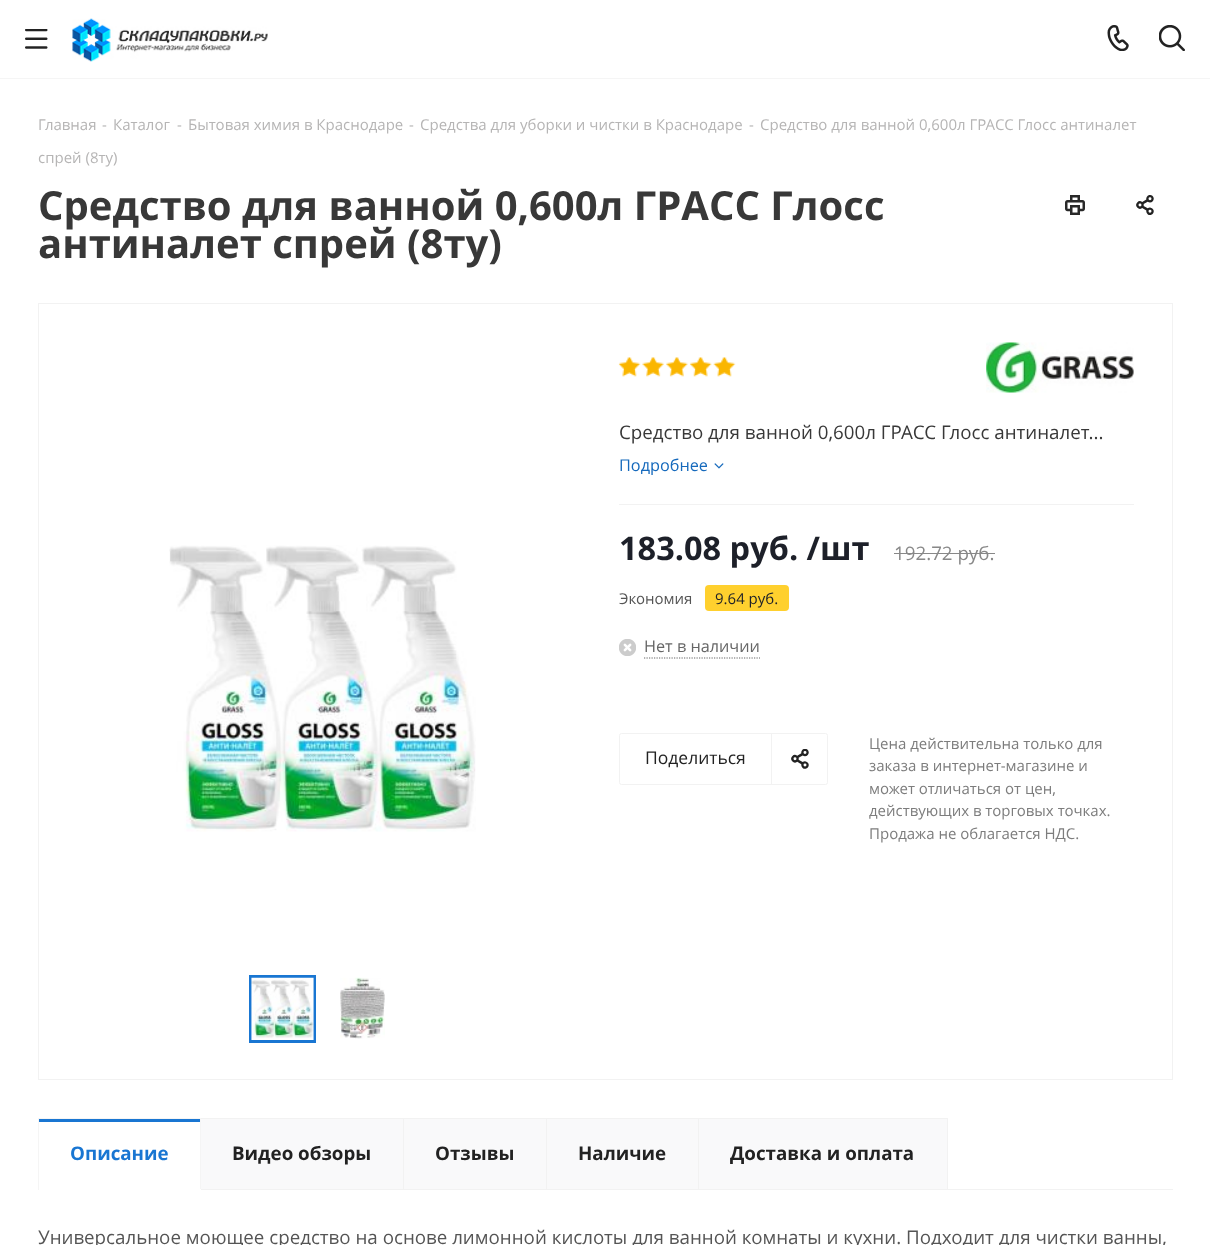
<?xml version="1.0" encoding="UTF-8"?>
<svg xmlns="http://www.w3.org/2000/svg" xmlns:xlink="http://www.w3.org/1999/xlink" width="1210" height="1245">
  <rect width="100%" height="100%" fill="#ffffff" />
  <rect y="78" width="1210" height="1" fill="#f5f5f5" />
  <image x="25" y="29" width="23" height="20" xlink:href="image1.png" />
  <image x="72" y="18" width="196" height="44" xlink:href="image2.png" />
  <image x="1107" y="25" width="22" height="26" xlink:href="image3.png" />
  <image x="1159" y="25" width="26" height="26" xlink:href="image4.png" />
  <image x="1065" y="195" width="20" height="20" xlink:href="image5.png" />
  <image x="1136" y="195" width="18" height="20" xlink:href="image6.png" />
  <rect x="38.5" y="303.5" width="1134" height="776" fill="none" stroke="#f2f2f2" />
  <image x="169" y="545" width="307" height="287" xlink:href="image7.png" />
  <rect x="250.5" y="976.5" width="64" height="65" fill="none" stroke="#1976d2" stroke-width="3" />
  <image x="251" y="977" width="63" height="63" xlink:href="image8.png" />
  <image x="340" y="977" width="45" height="62" xlink:href="image9.png" />
  <rect x="619" y="504" width="515" height="1" fill="#f2f2f2" />
  <image x="618" y="357" width="23" height="20" xlink:href="image10.png" />
  <image x="642" y="357" width="22" height="20" xlink:href="image11.png" />
  <image x="666" y="357" width="22" height="20" xlink:href="image12.png" />
  <image x="690" y="357" width="22" height="20" xlink:href="image13.png" />
  <image x="713" y="357" width="23" height="20" xlink:href="image14.png" />
  <image x="986" y="342" width="148" height="51" xlink:href="image15.png" />
  <image x="714" y="463" width="10" height="6" xlink:href="image16.png" />
  <rect x="894" y="553" width="101" height="1" fill="#888888" />
  <rect x="705" y="585" width="84" height="26" rx="4" fill="#ffd02e" />
  <image x="619" y="639" width="17" height="17" xlink:href="image17.png" />
  <path d="M 644 658 h 116" fill="none" stroke="#666666" stroke-width="1.2" stroke-dasharray="1.25 1.25" />
  <rect x="771" y="733" width="1" height="52" fill="#f2f2f2" />
  <image x="791" y="749" width="18" height="20" xlink:href="image18.png" />
  <rect x="619.5" y="733.5" width="208" height="51" rx="2" fill="none" stroke="#f2f2f2" />
  <rect x="948" y="1189" width="225" height="1" fill="#f2f2f2" />
  <rect x="200.5" y="1118.5" width="203" height="71" fill="#f9f9fa" stroke="#f2f2f2" />
  <rect x="38" y="1118" width="163" height="1" fill="#f5f5f5" />
  <rect x="200" y="1118" width="1" height="72" fill="#f5f5f5" />
  <rect x="200" y="1189" width="1" height="1" fill="#ffffff" />
  <rect x="38" y="1118" width="1" height="72" fill="#f5f5f5" />
  <rect x="39" y="1119" width="161" height="3" fill="#1976d2" />
  <rect x="404" y="1119" width="142" height="70" fill="#f9f9fa" />
  <rect x="403.5" y="1118.5" width="144" height="71" fill="none" stroke="#f2f2f2" />
  <rect x="546.5" y="1118.5" width="152" height="71" fill="#f9f9fa" stroke="#f2f2f2" />
  <rect x="698.5" y="1118.5" width="249" height="71" fill="#f9f9fa" stroke="#f2f2f2" />
  <text x="38" y="130" style="font-family: Open Sans; font-size: 15px; fill: #b6b5b5">Главная</text>
  <text x="102" y="130" style="font-family: Open Sans; font-size: 15px; fill: #b6b5b5">-</text>
  <text x="113" y="130" style="font-family: Open Sans; font-size: 15px; fill: #b6b5b5">Каталог</text>
  <text x="177" y="130" style="font-family: Open Sans; font-size: 15px; fill: #b6b5b5">-</text>
  <text x="188" y="130" style="font-family: Open Sans; font-size: 15px; fill: #b6b5b5">Бытовая химия в Краснодаре</text>
  <text x="409" y="130" style="font-family: Open Sans; font-size: 15px; fill: #b6b5b5">-</text>
  <text x="420" y="130" style="font-family: Open Sans; font-size: 15px; fill: #b6b5b5">Средства для уборки и чистки в Краснодаре</text>
  <text x="749" y="130" style="font-family: Open Sans; font-size: 15px; fill: #b6b5b5">-</text>
  <text x="760" y="130" style="font-family: Open Sans; font-size: 15px; fill: #b6b5b5">Средство для ванной 0,600л ГРАСС Глосс антиналет</text>
  <text x="38" y="163" style="font-family: Open Sans; font-size: 15px; fill: #b6b5b5">спрей (8ту)</text>
  <text x="38" y="220" style="font-family: Open Sans; font-size: 40px; font-weight: bold; fill: #383838">Средство для ванной 0,600л ГРАСС Глосс</text>
  <text x="38" y="258" style="font-family: Open Sans; font-size: 40px; font-weight: bold; fill: #383838">антиналет спрей (8ту)</text>
  <text x="619" y="439" style="font-family: Open Sans; font-size: 18.75px; fill: #383838">Средство для ванной 0,600л ГРАСС Глосс антиналет...</text>
  <text x="619" y="471" style="font-family: Open Sans; font-size: 16.25px; fill: #1569bc">Подробнее</text>
  <text x="619" y="560" style="font-family: Open Sans; font-size: 32.5px; font-weight: bold; fill: #1d2029">183.08 руб. /шт</text>
  <text x="894" y="560" style="font-family: Open Sans; font-size: 18.75px; fill: #888888">192.72 руб.</text>
  <text x="619" y="604" style="font-family: Open Sans; font-size: 15px; fill: #555555">Экономия</text>
  <text x="715" y="604" style="font-family: Open Sans; font-size: 15px; fill: #1d2029">9.64 руб.</text>
  <text x="644" y="652" style="font-family: Open Sans; font-size: 16.25px; fill: #666666">Нет в наличии</text>
  <text x="645" y="764" style="font-family: Open Sans; font-size: 17.5px; fill: #222222">Поделиться</text>
  <text x="869" y="749" style="font-family: Open Sans; font-size: 15px; fill: #7d7d7d">Цена действительна только для</text>
  <text x="869" y="771" style="font-family: Open Sans; font-size: 15px; fill: #7d7d7d">заказа в интернет-магазине и</text>
  <text x="869" y="794" style="font-family: Open Sans; font-size: 15px; fill: #7d7d7d">может отличаться от цен,</text>
  <text x="869" y="816" style="font-family: Open Sans; font-size: 15px; fill: #7d7d7d">действующих в торговых точках.</text>
  <text x="869" y="839" style="font-family: Open Sans; font-size: 15px; fill: #7d7d7d">Продажа не облагается НДС.</text>
  <text x="70" y="1160" style="font-family: Open Sans; font-size: 18.75px; font-weight: bold; fill: #1976d2">Описание</text>
  <text x="232" y="1160" style="font-family: Open Sans; font-size: 18.75px; font-weight: bold; fill: #222222">Видео обзоры</text>
  <text x="435" y="1160" style="font-family: Open Sans; font-size: 18.75px; font-weight: bold; fill: #222222">Отзывы</text>
  <text x="578" y="1160" style="font-family: Open Sans; font-size: 18.75px; font-weight: bold; fill: #222222">Наличие</text>
  <text x="730" y="1160" style="font-family: Open Sans; font-size: 18.75px; font-weight: bold; fill: #222222">Доставка и оплата</text>
  <text x="38" y="1244" style="font-family: Open Sans; font-size: 18.75px; fill: #555555">Универсальное моющее средство на основе лимонной кислоты для ванной комнаты и кухни. Подходит для чистки ванны,</text>
</svg>
